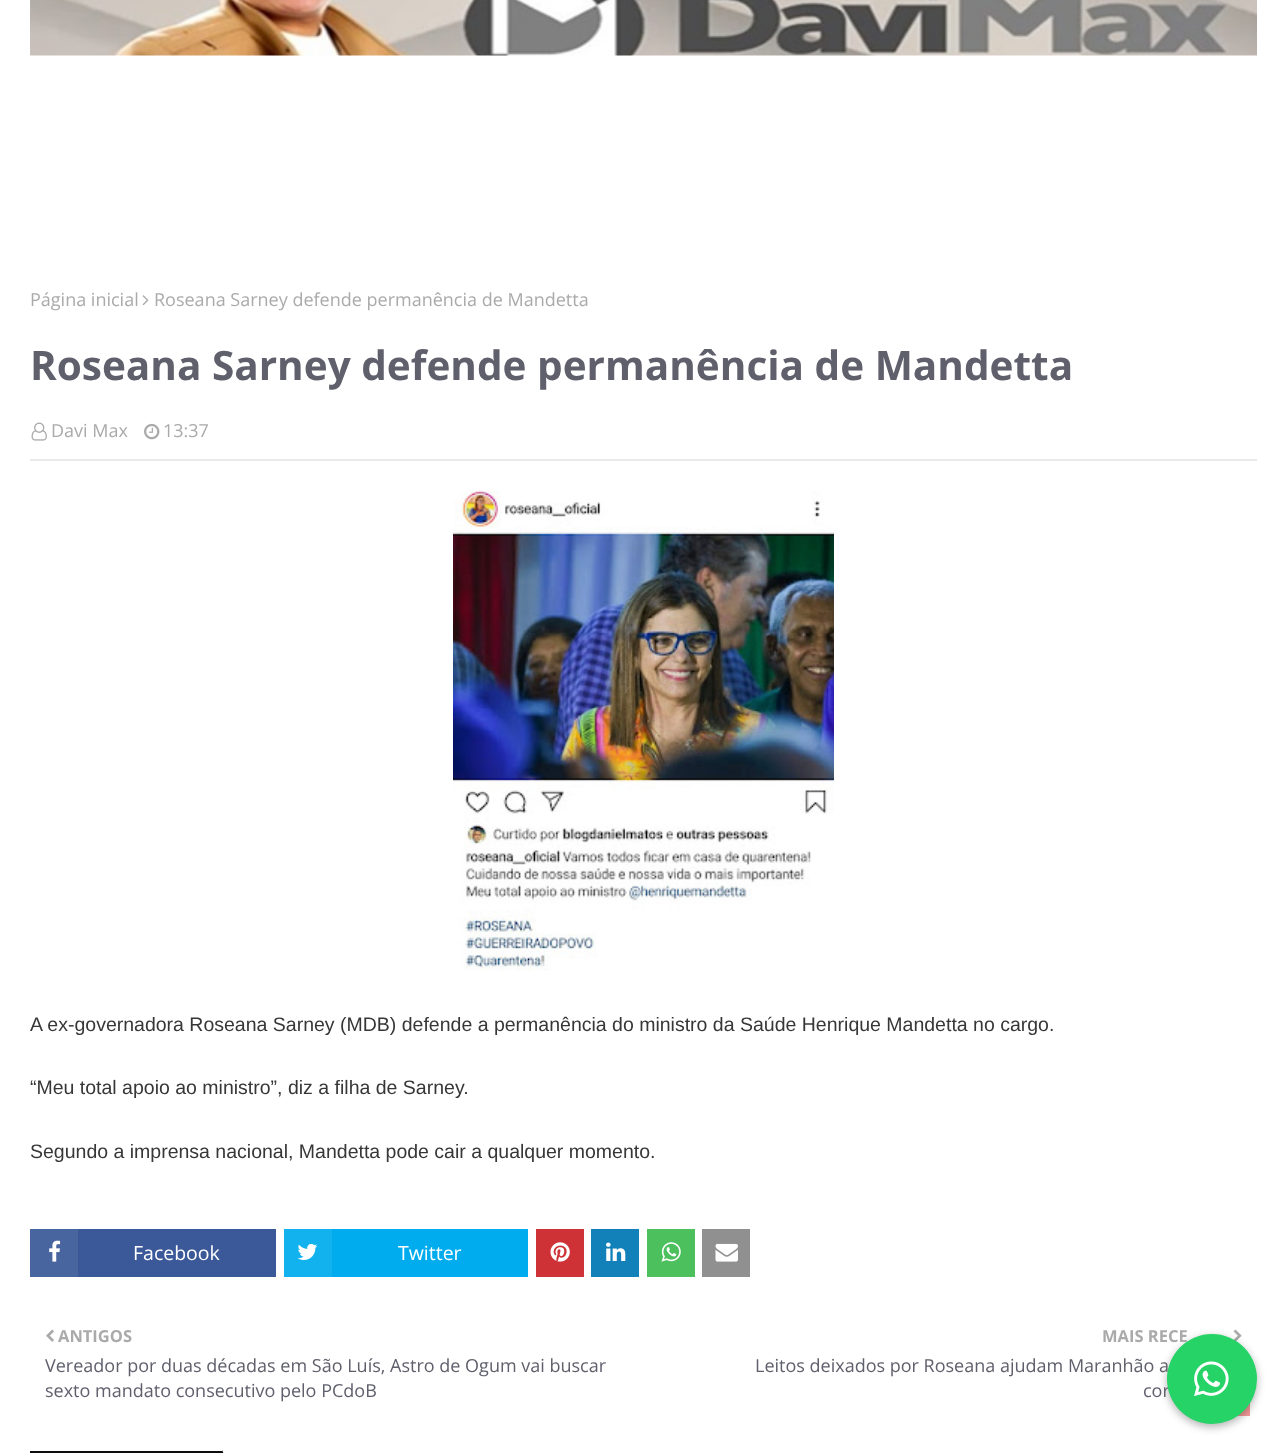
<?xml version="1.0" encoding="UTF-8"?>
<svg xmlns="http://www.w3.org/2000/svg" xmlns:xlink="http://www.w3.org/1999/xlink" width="1287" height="1453">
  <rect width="100%" height="100%" fill="#ffffff" />
  <image x="30" y="0" width="1227" height="56" xlink:href="image1.png" />
  <image x="142" y="295" width="7" height="11" xlink:href="image2.png" />
  <rect x="30" y="459" width="1227" height="2" fill="#eaeaea" />
  <image x="31" y="422" width="16" height="19" xlink:href="image3.png" />
  <image x="144" y="423" width="16" height="17" xlink:href="image4.png" />
  <image x="453" y="490" width="381" height="481" xlink:href="image5.png" />
  <rect x="78" y="1229" width="198" height="48" fill="#3b5999" />
  <rect x="30" y="1229" width="48" height="48" fill="#4965a0" />
  <image x="49" y="1240" width="12" height="22" xlink:href="image6.png" />
  <rect x="332" y="1229" width="196" height="48" fill="#00acee" />
  <rect x="284" y="1229" width="48" height="48" fill="#12b2ef" />
  <image x="297" y="1243" width="21" height="17" xlink:href="image7.png" />
  <rect x="536" y="1229" width="48" height="48" fill="#ce3136" />
  <image x="550" y="1242" width="20" height="20" xlink:href="image8.png" />
  <rect x="591" y="1229" width="48" height="48" fill="#1281ba" />
  <image x="606" y="1242" width="20" height="19" xlink:href="image9.png" />
  <rect x="647" y="1229" width="48" height="48" fill="#4cc05c" />
  <image x="661" y="1242" width="20" height="20" xlink:href="image10.png" />
  <rect x="702" y="1229" width="48" height="48" fill="#909090" />
  <image x="715" y="1243" width="23" height="19" xlink:href="image11.png" />
  <image x="46" y="1329" width="8" height="13" xlink:href="image12.png" />
  <image x="1233" y="1329" width="9" height="13" xlink:href="image13.png" />
  <rect x="30" y="1451" width="192" height="2" fill="#0d0d0d" />
  <path d="M 222 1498 v -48 l 22 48 z" fill="#0d0d0d" />
  <rect x="1237" y="1403" width="13" height="13" fill="#ec3535" fill-opacity="0.5" />
  <rect x="1167" y="1337" width="90" height="90" rx="45" fill="#000000" fill-opacity="0.3" filter="blur(4px)" />
  <text x="30" y="306" style="font-family: Open Sans; font-size: 18px; fill: #aaaaaa">Página inicial</text>
  <text x="154" y="306" style="font-family: Open Sans; font-size: 18px; fill: #aaaaaa">Roseana Sarney defende permanência de Mandetta</text>
  <text x="30" y="380" style="font-family: Open Sans; font-size: 40.5px; font-weight: bold; fill: #60606d">Roseana Sarney defende permanência de Mandetta</text>
  <text x="51" y="437" style="font-family: Open Sans; font-size: 18px; fill: #aaaaaa">Davi Max</text>
  <text x="163" y="437" style="font-family: Open Sans; font-size: 18px; fill: #aaaaaa">13:37</text>
  <text x="30" y="1031" style="font-family: Liberation Sans; font-size: 19.5px; fill: #373737">A ex-governadora Roseana Sarney (MDB) defende a permanência do ministro da Saúde Henrique Mandetta no cargo.</text>
  <text x="30" y="1094" style="font-family: Liberation Sans; font-size: 19.5px; fill: #373737">“Meu total apoio ao ministro”, diz a filha de Sarney.</text>
  <text x="30" y="1158" style="font-family: Liberation Sans; font-size: 19.5px; fill: #373737">Segundo a imprensa nacional, Mandetta pode cair a qualquer momento.</text>
  <text x="133" y="1260" style="font-family: Open Sans; font-size: 19.5px; fill: #ffffff">Facebook</text>
  <text x="398" y="1260" style="font-family: Open Sans; font-size: 19.5px; fill: #ffffff">Twitter</text>
  <text x="58" y="1342" style="font-family: Open Sans; font-size: 16.5px; font-weight: bold; fill: #aaaaaa">ANTIGOS</text>
  <text x="45" y="1372" style="font-family: Open Sans; font-size: 18px; fill: #60606d">Vereador por duas décadas em São Luís, Astro de Ogum vai buscar</text>
  <text x="45" y="1397" style="font-family: Open Sans; font-size: 18px; fill: #60606d">sexto mandato consecutivo pelo PCdoB</text>
  <text x="1102" y="1342" style="font-family: Open Sans; font-size: 16.5px; font-weight: bold; fill: #aaaaaa">MAIS RECE</text>
  <text x="755" y="1372" style="font-family: Open Sans; font-size: 18px; fill: #60606d">Leitos deixados por Roseana ajudam Maranhão a</text>
  <text x="1143" y="1397" style="font-family: Open Sans; font-size: 18px; fill: #60606d">cor</text>
  <circle cx="1212" cy="1379" r="45" fill="#25d366" />
  <image x="1194" y="1361" width="35" height="35" xlink:href="image14.png" />
</svg>
